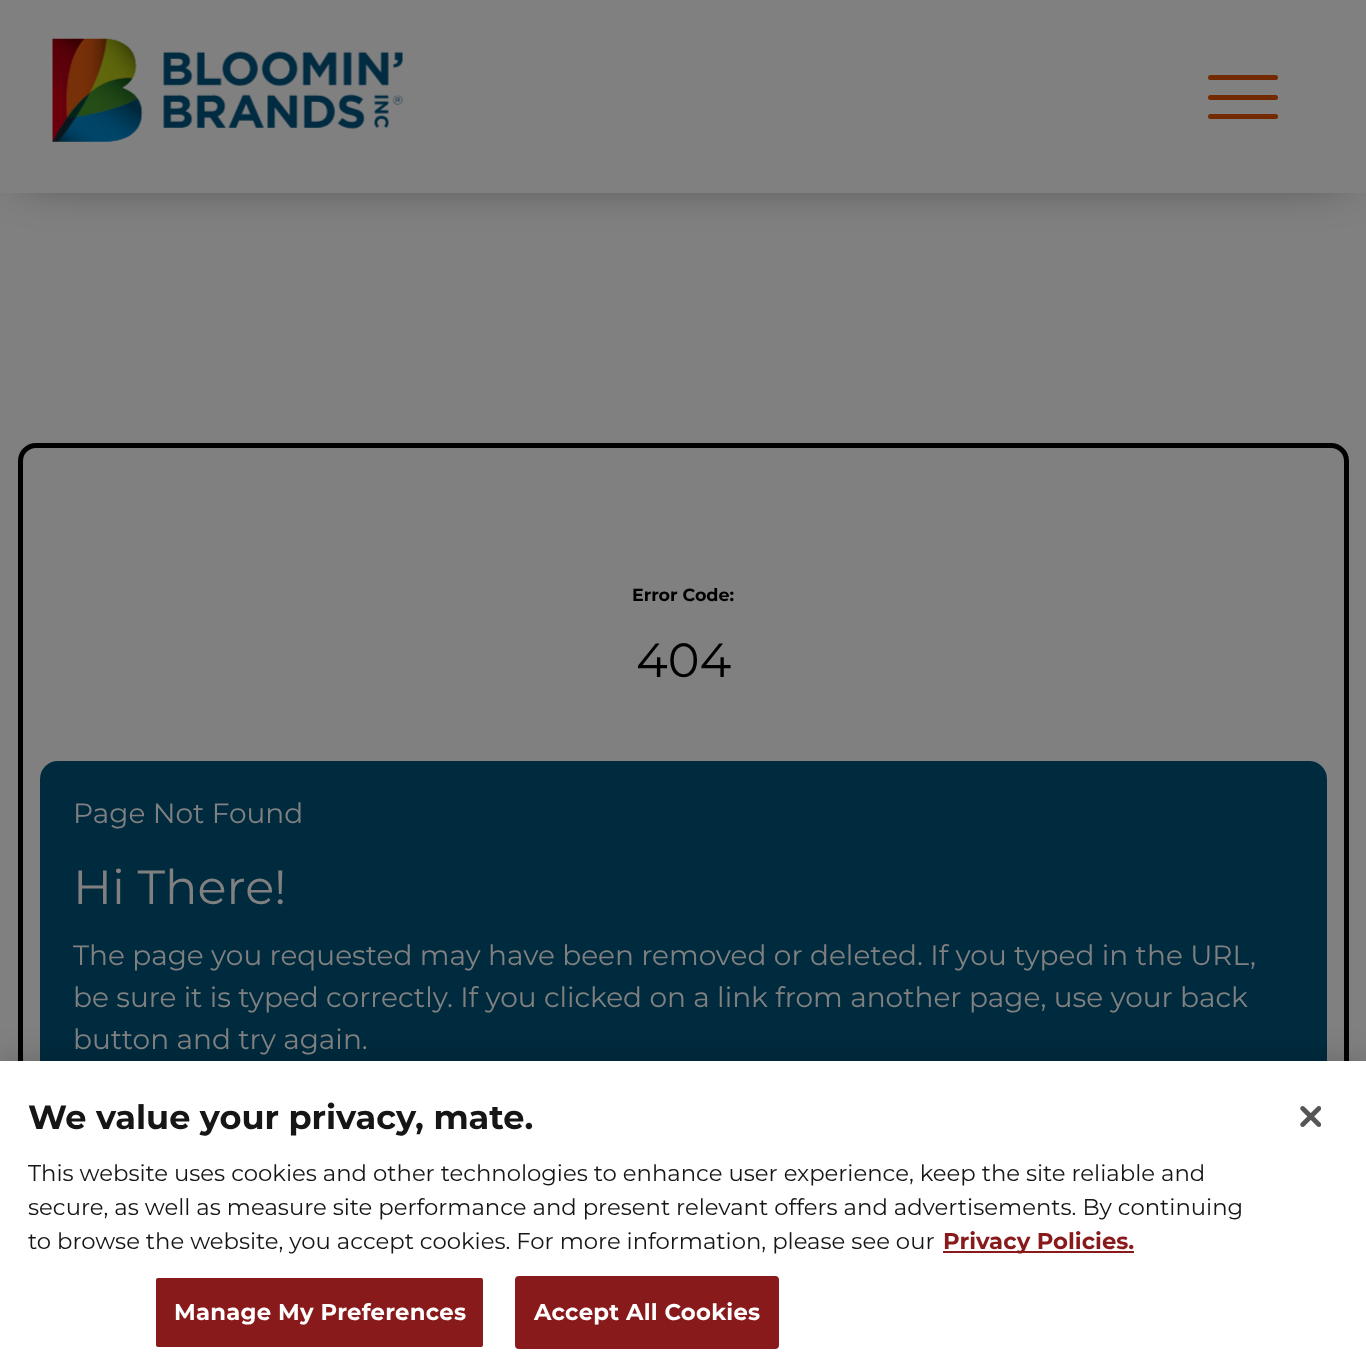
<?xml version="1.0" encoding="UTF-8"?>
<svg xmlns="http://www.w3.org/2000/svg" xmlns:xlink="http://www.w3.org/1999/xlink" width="1366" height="1366">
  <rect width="100%" height="100%" fill="#808080" />
  <rect x="23" y="23" width="1321" height="147" fill="#000000" fill-opacity="0.75" filter="blur(26px)" />
  <rect width="1366" height="193" fill="#808080" />
  <image x="52" y="38" width="351" height="104" xlink:href="image1.png" />
  <rect x="1208" y="75" width="70" height="5" rx="2.5" fill="#742a00" />
  <rect x="1208" y="95" width="70" height="5" rx="2.5" fill="#742a00" />
  <rect x="1208" y="114" width="70" height="5" rx="2.5" fill="#742a00" />
  <rect x="20.5" y="445.5" width="1326" height="684" rx="15.5" fill="none" stroke="#000000" stroke-width="5" />
  <rect x="40" y="761" width="1287" height="349" rx="18" fill="#002b3f" />
  <rect y="1061" width="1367" height="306" fill="#000000" fill-opacity="0.2" filter="blur(16px)" />
  <rect y="1061" width="1366" height="305" fill="#ffffff" />
  <rect x="943" y="1251" width="191" height="2" fill="#891a1c" />
  <rect x="155" y="1277" width="329" height="71" rx="3" fill="#891a1c" stroke="#ffffff" stroke-width="2" />
  <rect x="516" y="1277" width="262" height="71" rx="3" fill="#891a1c" stroke="#891a1c" stroke-width="2" />
  <image x="1300" y="1106" width="21" height="21" xlink:href="image2.png" />
  <text x="632" y="601" style="font-family: Montserrat; font-size: 17.5px; font-weight: bold; fill: #000000">Error Code:</text>
  <text x="636" y="677" style="font-family: Montserrat; font-size: 48px; fill: #000000">404</text>
  <text x="73" y="823" style="font-family: Montserrat; font-size: 28px; fill: #808080">Page Not Found</text>
  <text x="73" y="904" style="font-family: Montserrat; font-size: 48px; fill: #808080">Hi There!</text>
  <text x="73" y="965" style="font-family: Montserrat; font-size: 28px; fill: #808080">The page you requested may have been removed or deleted. If you typed in the URL,</text>
  <text x="73" y="1007" style="font-family: Montserrat; font-size: 28px; fill: #808080">be sure it is typed correctly. If you clicked on a link from another page, use your back</text>
  <text x="73" y="1049" style="font-family: Montserrat; font-size: 28px; fill: #808080">button and try again.</text>
  <text x="28" y="1129" style="font-family: Montserrat; font-size: 33.6px; font-weight: bold; fill: #161616">We value your privacy, mate.</text>
  <text x="28" y="1181" style="font-family: Montserrat; font-size: 22.75px; fill: #161616">This website uses cookies and other technologies to enhance user experience, keep the site reliable and</text>
  <text x="28" y="1215" style="font-family: Montserrat; font-size: 22.75px; fill: #161616">secure, as well as measure site performance and present relevant offers and advertisements. By continuing</text>
  <text x="28" y="1249" style="font-family: Montserrat; font-size: 22.75px; fill: #161616">to browse the website, you accept cookies. For more information, please see our</text>
  <text x="943" y="1249" style="font-family: Montserrat; font-size: 22.75px; font-weight: bold; fill: #891a1c">Privacy Policies.</text>
  <text x="174" y="1320" style="font-family: Montserrat; font-size: 22.75px; font-weight: bold; letter-spacing: 0.25px; fill: #ffffff">Manage My Preferences</text>
  <text x="534" y="1320" style="font-family: Montserrat; font-size: 22.75px; font-weight: bold; letter-spacing: 0.25px; fill: #ffffff">Accept All Cookies</text>
</svg>
